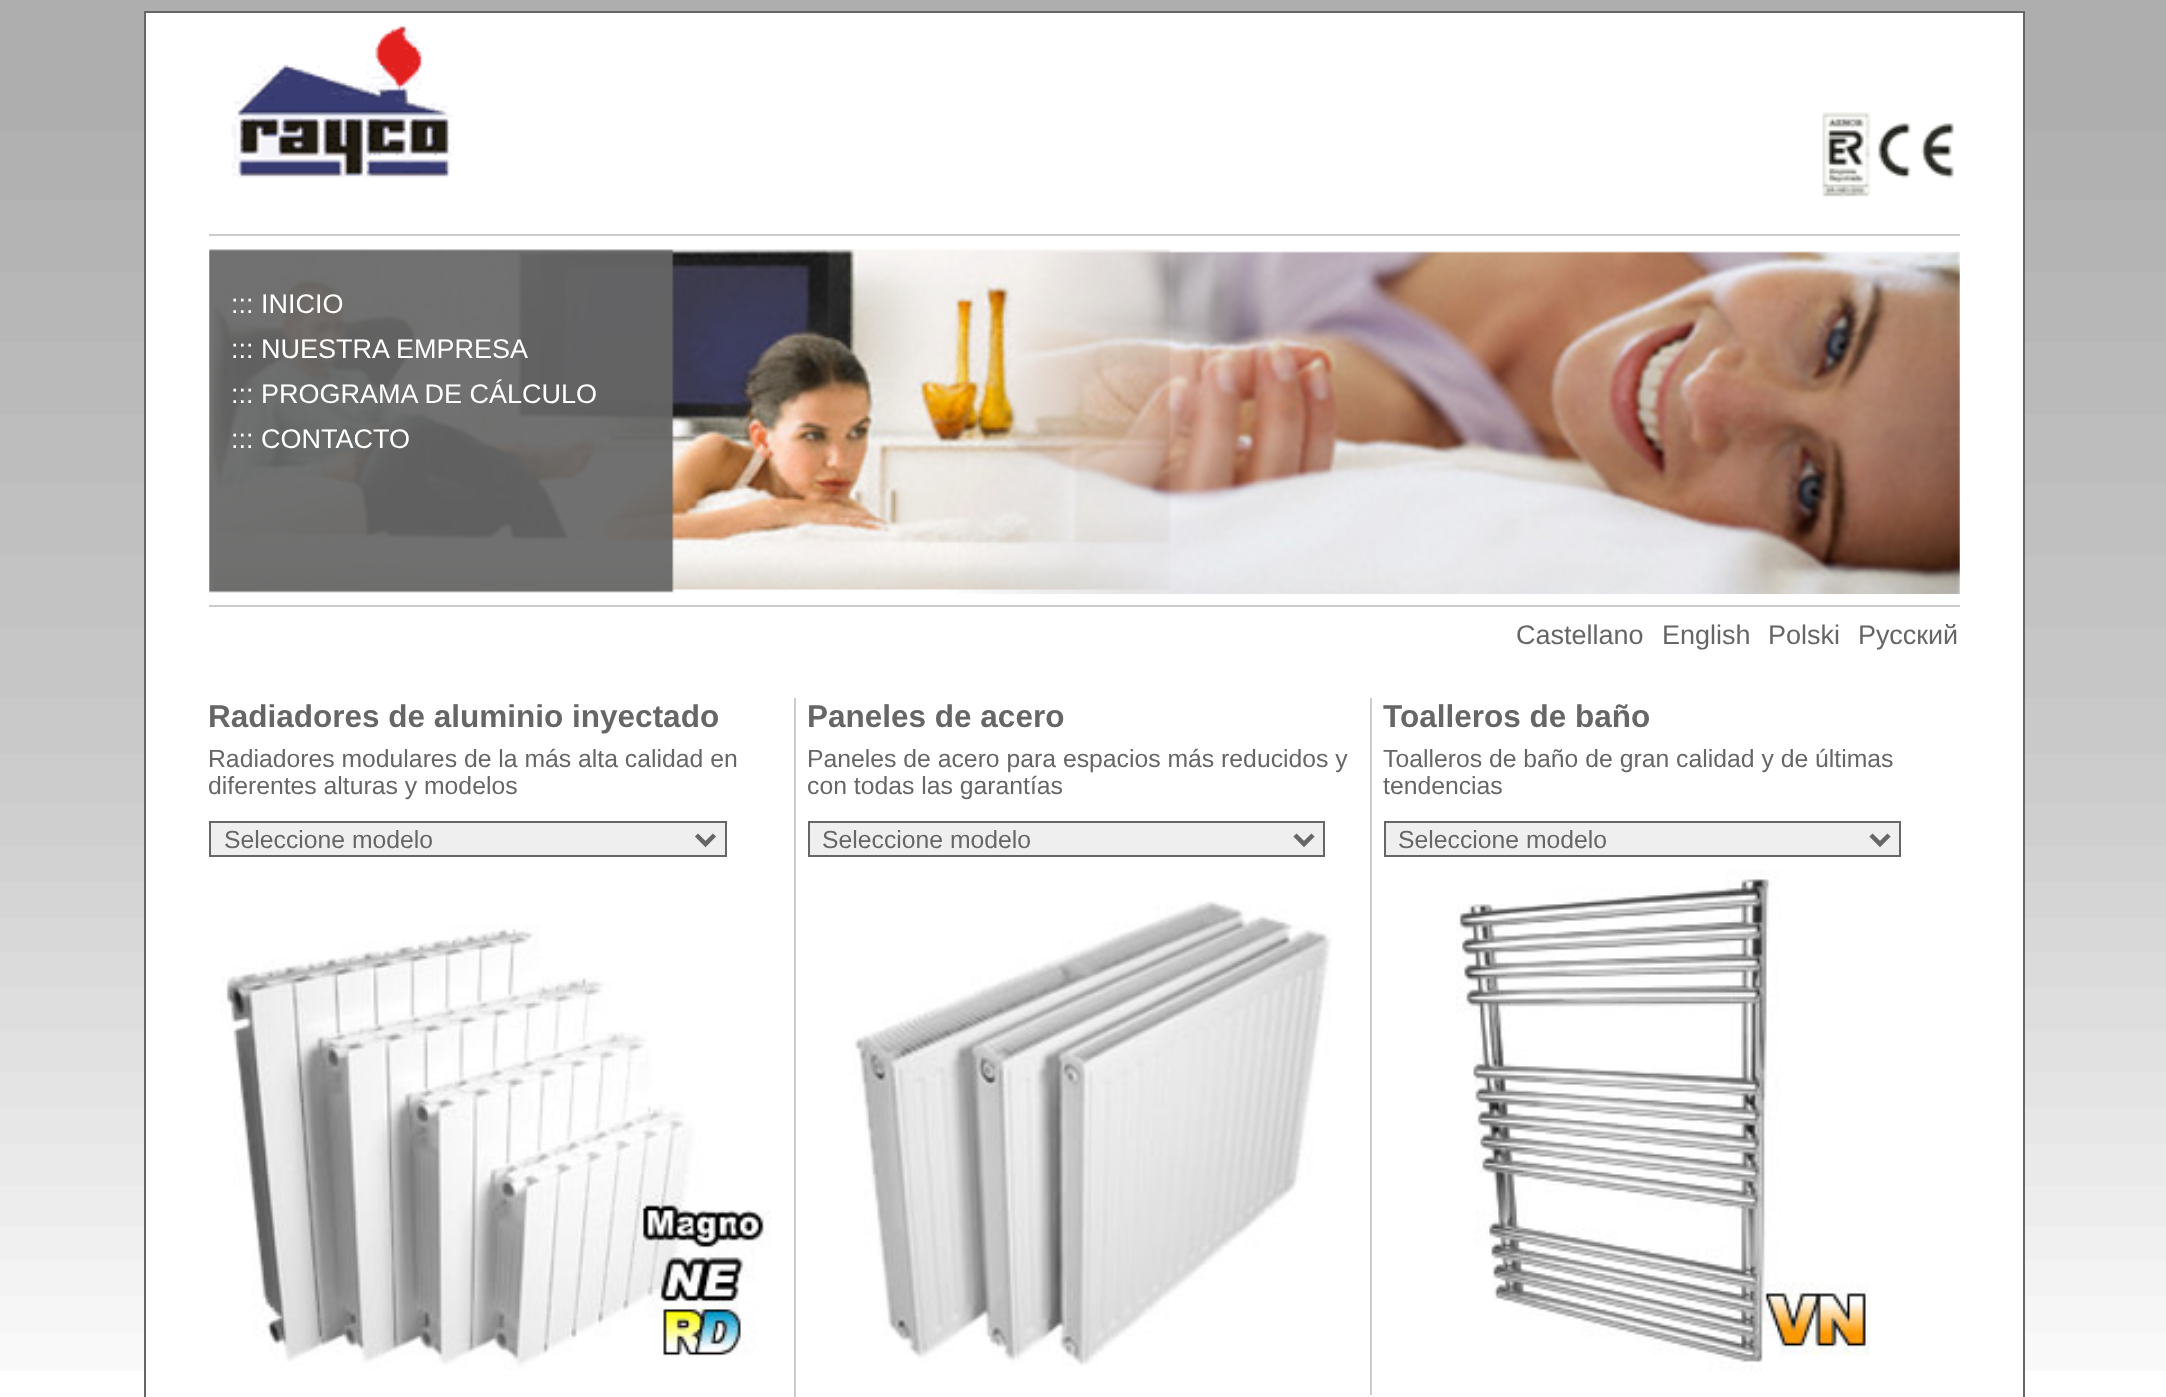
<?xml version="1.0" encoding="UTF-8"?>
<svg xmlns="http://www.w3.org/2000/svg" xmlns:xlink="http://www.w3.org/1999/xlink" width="2166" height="1397">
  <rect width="100%" height="100%" fill="#ffffff" />
  <image x="0" y="0" width="2166" height="1371" xlink:href="image1.png" />
  <rect x="146" y="13" width="1877" height="1358" fill="#ffffff" />
  <rect x="145" y="12" width="1879" height="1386" fill="none" stroke="#666666" stroke-width="2" />
  <image x="1822" y="112" width="132" height="87" xlink:href="image2.png" />
  <image x="231" y="26" width="224" height="152" xlink:href="image3.png" />
  <image x="209" y="249" width="1751" height="345" xlink:href="image4.png" />
  <rect x="209" y="234" width="1751" height="2" fill="#cccccc" />
  <rect x="209" y="605" width="1751" height="2" fill="#cccccc" />
  <rect x="794" y="698" width="2" height="699" fill="#cccccc" />
  <rect x="210" y="822" width="516" height="34" fill="#efefef" stroke="#666666" stroke-width="2" />
  <path d="M 696.5 835 l 9 9 l 9 -9" fill="none" stroke="#666666" stroke-width="4.5" />
  <image x="220" y="925" width="552" height="445" xlink:href="image5.png" />
  <rect x="1370" y="698" width="2" height="697" fill="#cccccc" />
  <rect x="809" y="822" width="515" height="34" fill="#efefef" stroke="#666666" stroke-width="2" />
  <path d="M 1295 835 l 9 9 l 9 -9" fill="none" stroke="#666666" stroke-width="4.5" />
  <image x="849" y="901" width="483" height="465" xlink:href="image6.png" />
  <rect x="1385" y="822" width="515" height="34" fill="#efefef" stroke="#666666" stroke-width="2" />
  <path d="M 1871 835 l 9 9 l 9 -9" fill="none" stroke="#666666" stroke-width="4.5" />
  <image x="1456" y="869" width="414" height="503" xlink:href="image7.png" />
  <text x="231" y="313" style="font-family: Liberation Sans; font-size: 27px; fill: #ffffff">::: INICIO</text>
  <text x="231" y="358" style="font-family: Liberation Sans; font-size: 27px; fill: #ffffff">::: NUESTRA EMPRESA</text>
  <text x="231" y="403" style="font-family: Liberation Sans; font-size: 27px; fill: #ffffff">::: PROGRAMA DE CÁLCULO</text>
  <text x="231" y="448" style="font-family: Liberation Sans; font-size: 27px; fill: #ffffff">::: CONTACTO</text>
  <text x="1516" y="644" style="font-family: Liberation Sans; font-size: 27px; fill: #666666">Castellano</text>
  <text x="1662" y="644" style="font-family: Liberation Sans; font-size: 27px; fill: #666666">English</text>
  <text x="1768" y="644" style="font-family: Liberation Sans; font-size: 27px; fill: #666666">Polski</text>
  <text x="1858" y="644" style="font-family: Liberation Sans; font-size: 27px; fill: #666666">Pусский</text>
  <text x="208" y="727" style="font-family: Liberation Sans; font-size: 31.5px; font-weight: bold; fill: #666666">Radiadores de aluminio inyectado</text>
  <text x="208" y="767" style="font-family: Liberation Sans; font-size: 24.75px; fill: #666666">Radiadores modulares de la más alta calidad en</text>
  <text x="208" y="794" style="font-family: Liberation Sans; font-size: 24.75px; fill: #666666">diferentes alturas y modelos</text>
  <text x="224" y="848" style="font-family: Liberation Sans; font-size: 24.75px; fill: #666666">Seleccione modelo</text>
  <text x="807" y="727" style="font-family: Liberation Sans; font-size: 31.5px; font-weight: bold; fill: #666666">Paneles de acero</text>
  <text x="807" y="767" style="font-family: Liberation Sans; font-size: 24.75px; fill: #666666">Paneles de acero para espacios más reducidos y</text>
  <text x="807" y="794" style="font-family: Liberation Sans; font-size: 24.75px; fill: #666666">con todas las garantías</text>
  <text x="822" y="848" style="font-family: Liberation Sans; font-size: 24.75px; fill: #666666">Seleccione modelo</text>
  <text x="1383" y="727" style="font-family: Liberation Sans; font-size: 31.5px; font-weight: bold; fill: #666666">Toalleros de baño</text>
  <text x="1383" y="767" style="font-family: Liberation Sans; font-size: 24.75px; fill: #666666">Toalleros de baño de gran calidad y de últimas</text>
  <text x="1383" y="794" style="font-family: Liberation Sans; font-size: 24.75px; fill: #666666">tendencias</text>
  <text x="1398" y="848" style="font-family: Liberation Sans; font-size: 24.75px; fill: #666666">Seleccione modelo</text>
</svg>
